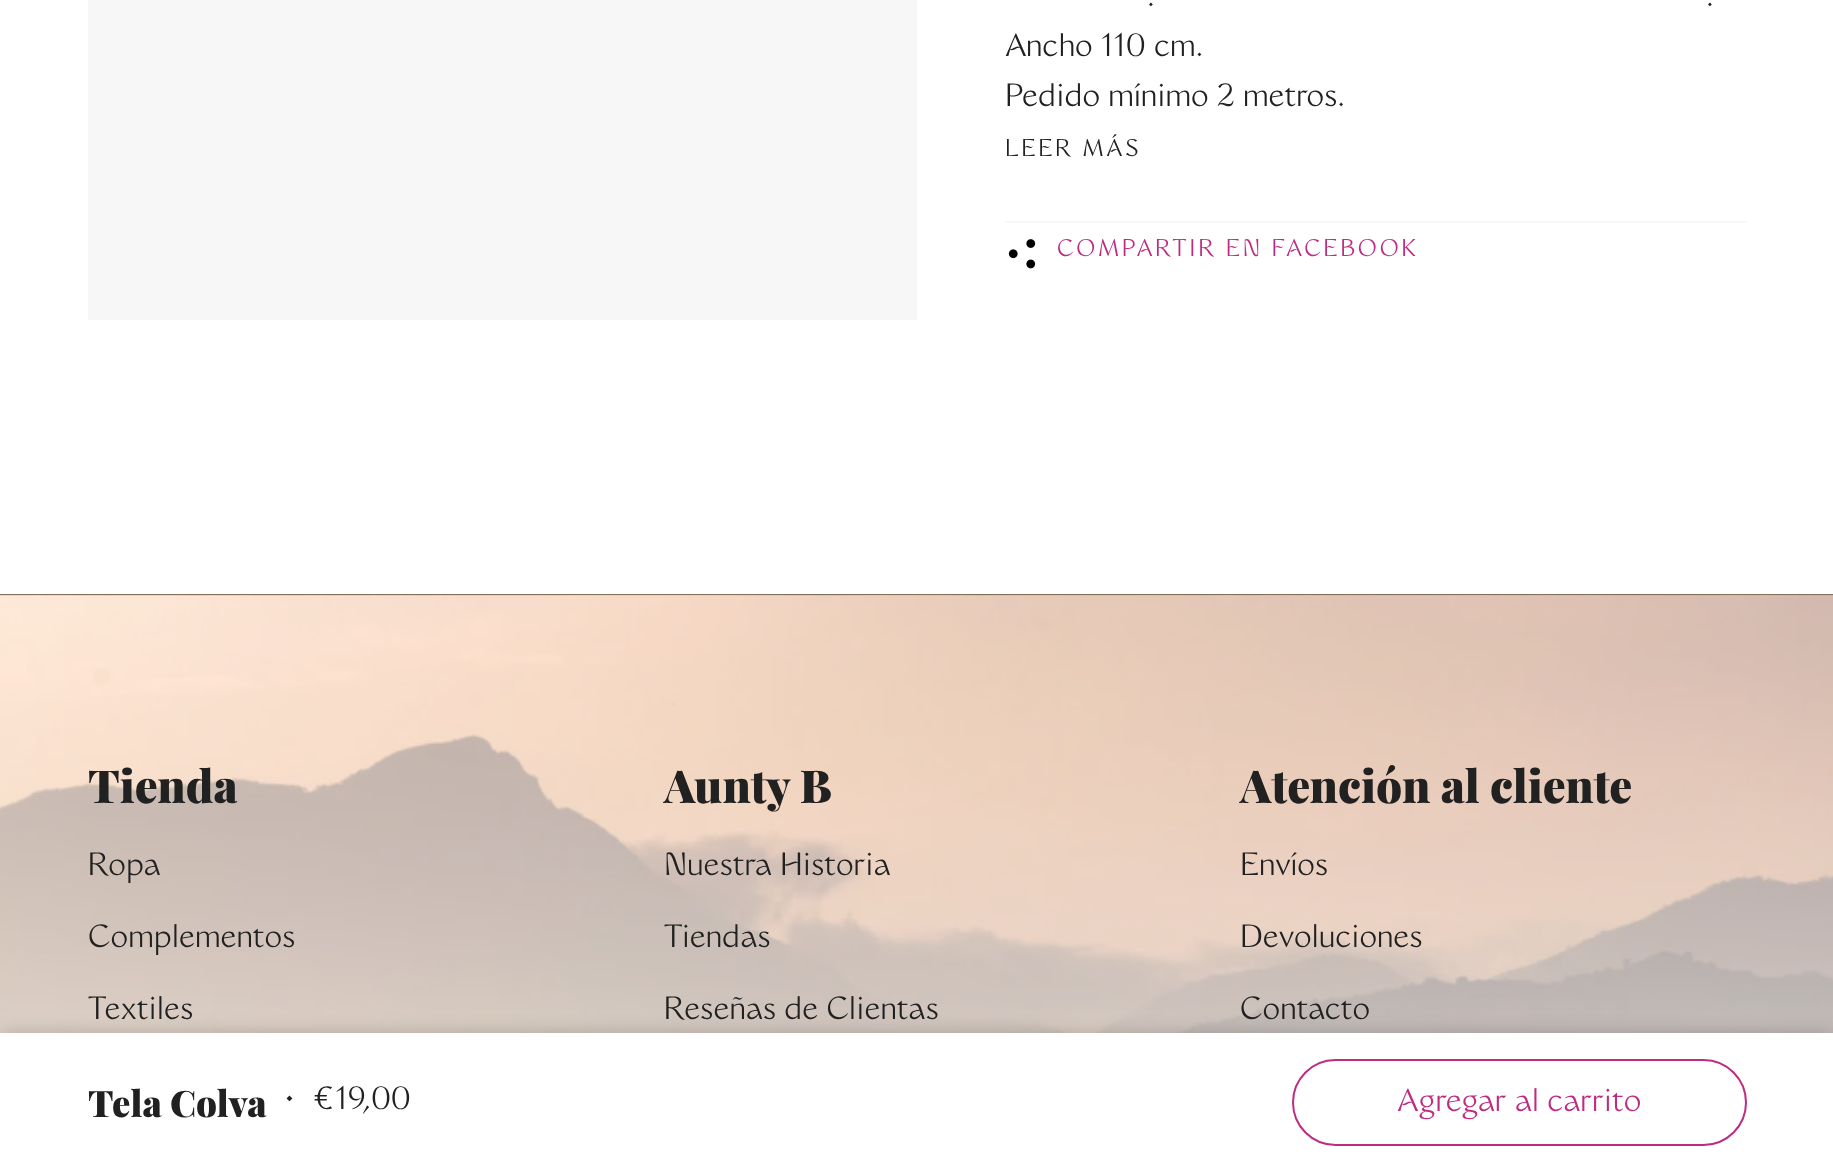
<?xml version="1.0" encoding="UTF-8"?>
<svg xmlns="http://www.w3.org/2000/svg" xmlns:xlink="http://www.w3.org/1999/xlink" width="1833" height="1171">
  <rect width="100%" height="100%" fill="#ffffff" />
  <rect x="88" width="829" height="320" fill="#f7f7f7" />
  <rect x="1005" y="221" width="742" height="2" fill="#faf7fa" />
  <image x="1008" y="239" width="28" height="30" xlink:href="image1.png" />
  <rect y="594" width="1833" height="1" fill="#8a725b" />
  <image x="0" y="594" width="1833" height="439" xlink:href="image2.png" />
  <rect y="1033" width="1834" height="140" fill="#000000" fill-opacity="0.2" filter="blur(9px)" />
  <rect y="1033" width="1833" height="138" fill="#ffffff" />
  <rect x="1293" y="1060" width="453" height="85" rx="42.5" fill="none" stroke="#be2c82" stroke-width="2" />
  <text x="1147" y="6" style="font-family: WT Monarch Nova; font-size: 29.4px; fill: #212121">.</text>
  <text x="1706" y="6" style="font-family: WT Monarch Nova; font-size: 29.4px; fill: #212121">.</text>
  <text x="1005" y="56" style="font-family: WT Monarch Nova; font-size: 29.4px; fill: #212121">Ancho 110 cm.</text>
  <text x="1005" y="106" style="font-family: WT Monarch Nova; font-size: 29.4px; fill: #212121">Pedido mínimo 2 metros.</text>
  <text x="1005" y="156" style="font-family: WT Monarch Nova; font-size: 22px; letter-spacing: 2.65px; fill: #212121">LEER MÁS</text>
  <text x="1057" y="256" style="font-family: WT Monarch Nova; font-size: 22px; letter-spacing: 2.65px; fill: #be2c82">COMPARTIR EN FACEBOOK</text>
  <text x="88" y="1117" style="font-family: Playfair Display; font-size: 36.5px; font-weight: 900; fill: #212121">Tela Colva</text>
  <text x="283" y="1109" style="font-family: WT Monarch Nova; font-size: 29.4px; fill: #212121">•</text>
  <text x="313" y="1109" style="font-family: WT Monarch Nova; font-size: 29.4px; fill: #212121">€19,00</text>
  <text x="1397" y="1111" style="font-family: WT Monarch Nova; font-size: 29.4px; fill: #be2c82">Agregar al carrito</text>
  <text x="88" y="803" style="font-family: Playfair Display; font-size: 45.5px; font-weight: 900; fill: #212121">Tienda</text>
  <text x="88" y="875" style="font-family: WT Monarch Nova; font-size: 29.4px; fill: #212121">Ropa</text>
  <text x="88" y="947" style="font-family: WT Monarch Nova; font-size: 29.4px; fill: #212121">Complementos</text>
  <text x="88" y="1019" style="font-family: WT Monarch Nova; font-size: 29.4px; fill: #212121">Textiles</text>
  <text x="664" y="803" style="font-family: Playfair Display; font-size: 45.5px; font-weight: 900; fill: #212121">Aunty B</text>
  <text x="664" y="875" style="font-family: WT Monarch Nova; font-size: 29.4px; fill: #212121">Nuestra Historia</text>
  <text x="664" y="947" style="font-family: WT Monarch Nova; font-size: 29.4px; fill: #212121">Tiendas</text>
  <text x="664" y="1019" style="font-family: WT Monarch Nova; font-size: 29.4px; fill: #212121">Reseñas de Clientas</text>
  <text x="1240" y="803" style="font-family: Playfair Display; font-size: 45.5px; font-weight: 900; fill: #212121">Atención al cliente</text>
  <text x="1240" y="875" style="font-family: WT Monarch Nova; font-size: 29.4px; fill: #212121">Envíos</text>
  <text x="1240" y="947" style="font-family: WT Monarch Nova; font-size: 29.4px; fill: #212121">Devoluciones</text>
  <text x="1240" y="1019" style="font-family: WT Monarch Nova; font-size: 29.4px; fill: #212121">Contacto</text>
</svg>
